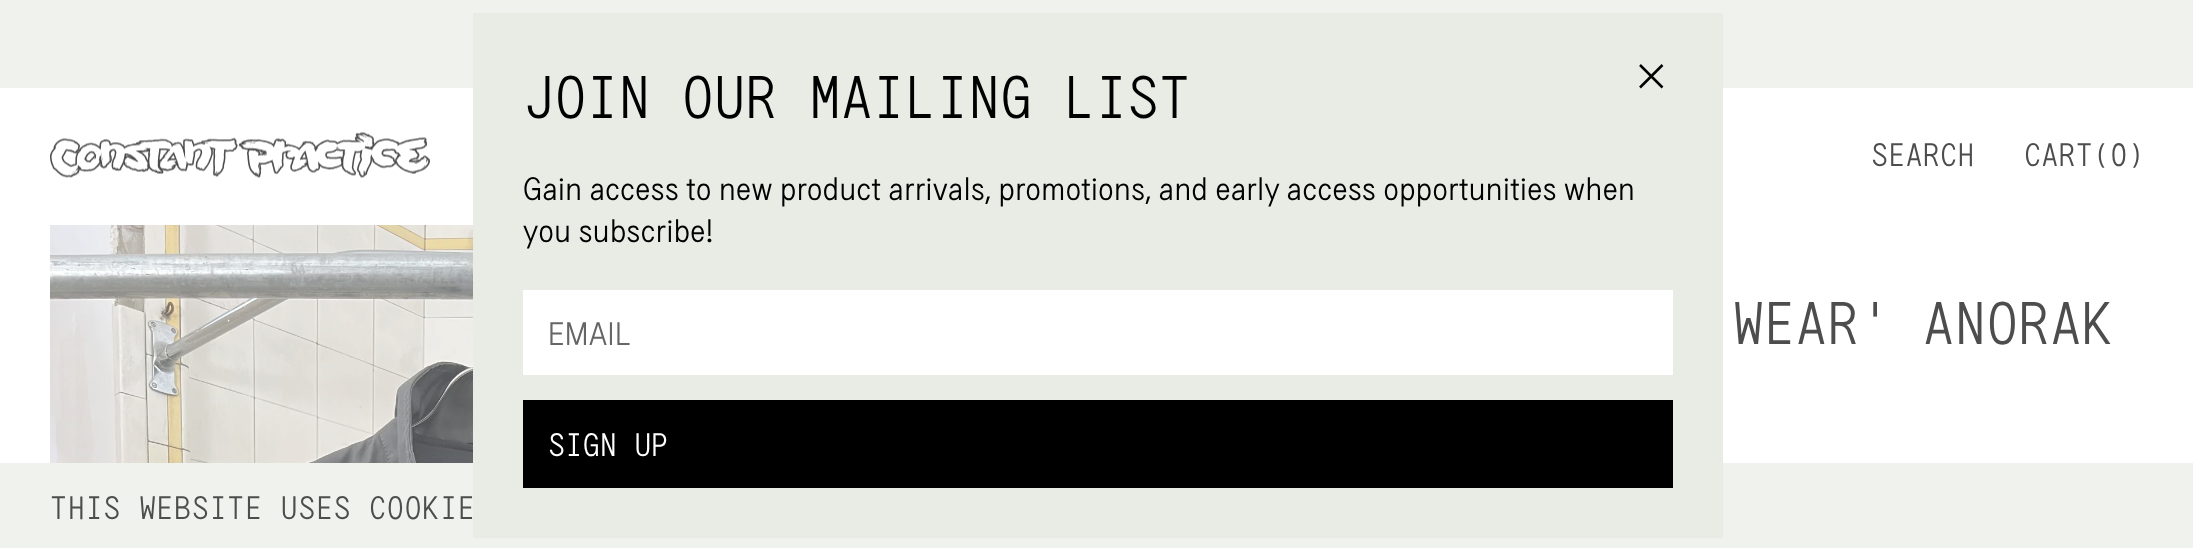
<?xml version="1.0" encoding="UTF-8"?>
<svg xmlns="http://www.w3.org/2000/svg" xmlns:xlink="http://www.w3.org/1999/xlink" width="2193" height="548">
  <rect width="100%" height="100%" fill="#ffffff" />
  <rect width="2193" height="88" fill="#f0f2ed" />
  <rect y="463" width="2193" height="85" fill="#f0f2ed" />
  <rect x="473" y="13" width="1250" height="525" fill="#e9ece5" />
  <path d="M 1640 65 l 22.5 22.5 m 0 -22.5 l -22.5 22.5" fill="none" stroke="#000000" stroke-width="2.5" />
  <rect x="523" y="290" width="1150" height="85" fill="#ffffff" />
  <rect x="523" y="400" width="1150" height="88" fill="#000000" />
  <image x="50" y="132" width="380" height="46" xlink:href="image1.png" />
  <image x="50" y="225" width="423" height="238" xlink:href="image2.png" />
  <text x="523" y="118" style="font-family: 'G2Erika'; font-size: 60px; fill: #000000">JOIN OUR MAILING LIST</text>
  <text x="523" y="200" style="font-family: 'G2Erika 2'; font-size: 32.5px; letter-spacing: 0.5px; fill: #000000">Gain access to new product arrivals, promotions, and early access opportunities when</text>
  <text x="523" y="242" style="font-family: 'G2Erika 2'; font-size: 32.5px; letter-spacing: 0.5px; fill: #000000">you subscribe!</text>
  <text x="548" y="345" style="font-family: 'G2Erika 2'; font-size: 32.5px; letter-spacing: 0.5px; fill: #666666">EMAIL</text>
  <text x="548" y="456" style="font-family: 'G2Erika'; font-size: 32.5px; fill: #ffffff">SIGN UP</text>
  <text x="1871" y="166" style="font-family: 'G2Erika'; font-size: 32.5px; fill: #4d4d4d">SEARCH</text>
  <text x="2024" y="166" style="font-family: 'G2Erika'; font-size: 32.5px; fill: #4d4d4d">CART(0)</text>
  <text x="1732" y="344" style="font-family: 'G2Erika'; font-size: 60px; fill: #4d4d4d">WEAR' ANORAK</text>
  <text x="50" y="519" style="font-family: 'G2Erika'; font-size: 32.5px; letter-spacing: 0.5px; fill: #4d4d4d">THIS WEBSITE USES COOKIE</text>
</svg>
